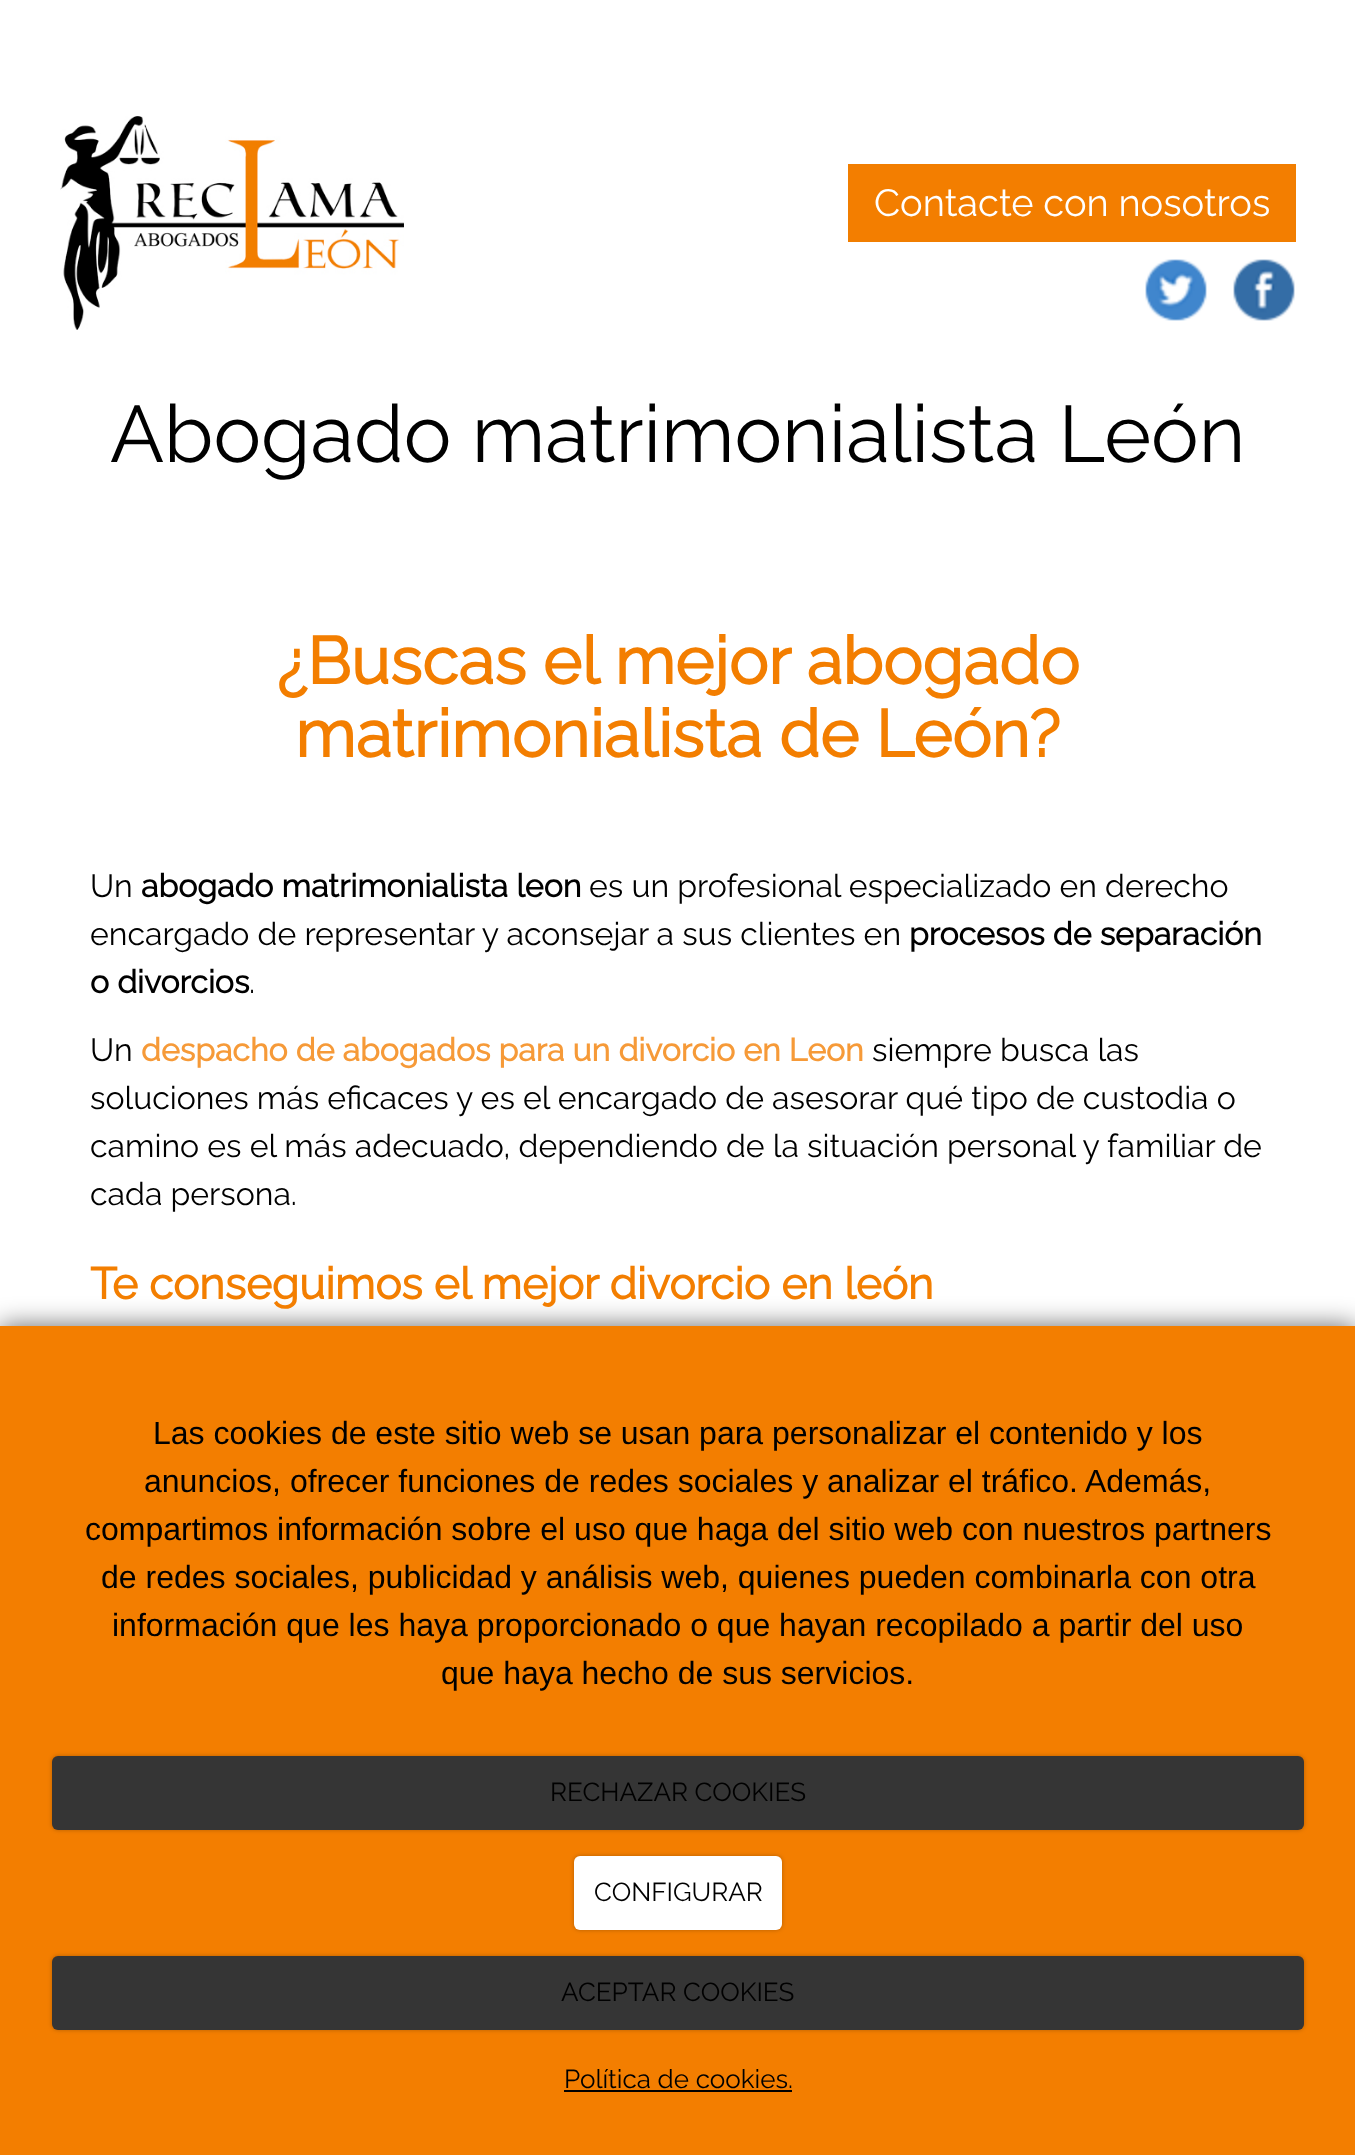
<?xml version="1.0" encoding="UTF-8"?>
<svg xmlns="http://www.w3.org/2000/svg" xmlns:xlink="http://www.w3.org/1999/xlink" width="1355" height="2155">
  <rect width="100%" height="100%" fill="#ffffff" />
  <image x="60" y="116" width="344" height="214" xlink:href="image1.png" />
  <rect x="849" y="165" width="446" height="76" fill="#f37e00" stroke="#f17e00" stroke-width="2" />
  <image x="1145" y="259" width="62" height="62" xlink:href="image2.png" />
  <image x="1233" y="259" width="62" height="62" xlink:href="image3.png" />
  <rect y="1326" width="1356" height="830" fill="#000000" fill-opacity="0.6" filter="blur(13px)" />
  <rect y="1326" width="1355" height="829" fill="#f37e00" />
  <rect x="52" y="1756" width="1252" height="74" rx="6" fill="#000000" fill-opacity="0.25" filter="blur(2px)" />
  <rect x="52" y="1756" width="1252" height="74" rx="6" fill="#353535" />
  <rect x="574" y="1856" width="208" height="74" rx="6" fill="#000000" fill-opacity="0.25" filter="blur(2px)" />
  <rect x="574" y="1856" width="208" height="74" rx="6" fill="#ffffff" />
  <rect x="52" y="1956" width="1252" height="74" rx="6" fill="#000000" fill-opacity="0.25" filter="blur(2px)" />
  <rect x="52" y="1956" width="1252" height="74" rx="6" fill="#353535" />
  <rect x="564" y="2090" width="228" height="2" fill="#000000" />
  <text x="874" y="216" style="font-family: Raleway; font-size: 38px; font-weight: 100; fill: #ffffff">Contacte con nosotros</text>
  <text x="110" y="462" style="font-family: Raleway; font-size: 80px; font-weight: 100; fill: #000000">Abogado matrimonialista León</text>
  <text x="277" y="684" style="font-family: Raleway; font-size: 66px; font-weight: bold; fill: #f37e00">¿Buscas el mejor abogado</text>
  <text x="295" y="757" style="font-family: Raleway; font-size: 66px; font-weight: bold; fill: #f37e00">matrimonialista de León?</text>
  <text x="90" y="897" style="font-family: Raleway; font-size: 32px; font-weight: 100; fill: #000000">Un</text>
  <text x="141" y="897" style="font-family: Raleway; font-size: 32px; font-weight: bold; fill: #000000">abogado matrimonialista leon</text>
  <text x="589" y="897" style="font-family: Raleway; font-size: 32px; font-weight: 100; fill: #000000">es un profesional especializado en derecho</text>
  <text x="90" y="945" style="font-family: Raleway; font-size: 32px; font-weight: 100; fill: #000000">encargado de representar y aconsejar a sus clientes en</text>
  <text x="909" y="945" style="font-family: Raleway; font-size: 32px; font-weight: bold; fill: #000000">procesos de separación</text>
  <text x="90" y="993" style="font-family: Raleway; font-size: 32px; font-weight: bold; fill: #000000">o divorcios</text>
  <text x="249" y="993" style="font-family: Raleway; font-size: 32px; font-weight: 100; fill: #000000">.</text>
  <text x="90" y="1061" style="font-family: Raleway; font-size: 32px; font-weight: 100; fill: #000000">Un</text>
  <text x="141" y="1061" style="font-family: Raleway; font-size: 32px; font-weight: bold; fill: #f69a38">despacho de abogados para un divorcio en Leon</text>
  <text x="872" y="1061" style="font-family: Raleway; font-size: 32px; font-weight: 100; fill: #000000">siempre busca las</text>
  <text x="90" y="1109" style="font-family: Raleway; font-size: 32px; font-weight: 100; fill: #000000">soluciones más eficaces y es el encargado de asesorar qué tipo de custodia o</text>
  <text x="90" y="1157" style="font-family: Raleway; font-size: 32px; font-weight: 100; fill: #000000">camino es el más adecuado, dependiendo de la situación personal y familiar de</text>
  <text x="90" y="1205" style="font-family: Raleway; font-size: 32px; font-weight: 100; fill: #000000">cada persona.</text>
  <text x="90" y="1299" style="font-family: Raleway; font-size: 44px; font-weight: bold; fill: #f37e00">Te conseguimos el mejor divorcio en león</text>
  <text x="153" y="1444" style="font-family: Liberation Sans; font-size: 32px; fill: #000000">Las cookies de este sitio web se usan para personalizar el contenido y los</text>
  <text x="144" y="1492" style="font-family: Liberation Sans; font-size: 32px; fill: #000000">anuncios, ofrecer funciones de redes sociales y analizar el tráfico. Además,</text>
  <text x="85" y="1540" style="font-family: Liberation Sans; font-size: 32px; fill: #000000">compartimos información sobre el uso que haga del sitio web con nuestros partners</text>
  <text x="101" y="1588" style="font-family: Liberation Sans; font-size: 32px; fill: #000000">de redes sociales, publicidad y análisis web, quienes pueden combinarla con otra</text>
  <text x="112" y="1636" style="font-family: Liberation Sans; font-size: 32px; fill: #000000">información que les haya proporcionado o que hayan recopilado a partir del uso</text>
  <text x="441" y="1684" style="font-family: Liberation Sans; font-size: 32px; fill: #000000">que haya hecho de sus servicios.</text>
  <text x="550" y="1801" style="font-family: Raleway; font-size: 26px; font-weight: 100; fill: #000000">RECHAZAR COOKIES</text>
  <text x="594" y="1901" style="font-family: Raleway; font-size: 26px; font-weight: 100; fill: #000000">CONFIGURAR</text>
  <text x="561" y="2001" style="font-family: Raleway; font-size: 26px; font-weight: 100; fill: #000000">ACEPTAR COOKIES</text>
  <text x="564" y="2088" style="font-family: Raleway; font-size: 26px; font-weight: 100; fill: #000000">Política de cookies.</text>
</svg>
